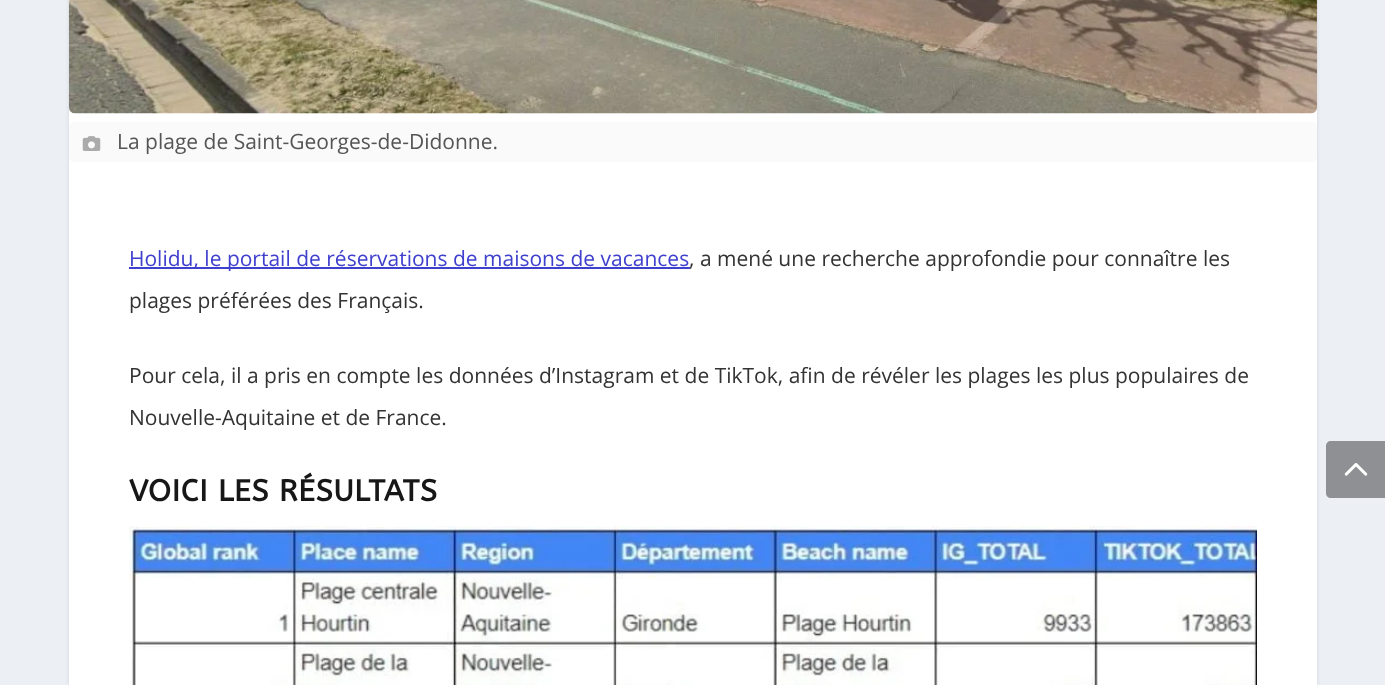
<?xml version="1.0" encoding="UTF-8"?>
<svg xmlns="http://www.w3.org/2000/svg" xmlns:xlink="http://www.w3.org/1999/xlink" width="1385" height="685">
  <rect width="100%" height="100%" fill="#ecf0f5" />
  <rect x="69" y="-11" width="1248" height="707" rx="5" fill="#000000" fill-opacity="0.1" filter="blur(2px)" />
  <rect x="69" y="108" width="1248" height="577" fill="#ffffff" />
  <image x="69" y="0" width="1248" height="114" xlink:href="image1.png" />
  <rect x="69" y="122" width="1248" height="40" rx="5" fill="#fafafa" />
  <image x="82" y="136" width="19" height="15" xlink:href="image2.png" />
  <rect x="129" y="267" width="561" height="2" fill="#4040ce" />
  <image x="129" y="526" width="1128" height="159" xlink:href="image3.png" />
  <path d="M 1331 441 h 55 v 57 h -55 c -3 0 -5 -2 -5 -5 v -47 c 0 -3 2 -5 5 -5 z" fill="#8e9093" />
  <image x="1344" y="463" width="24" height="13" xlink:href="image4.png" />
  <text x="117" y="149" style="font-family: Open Sans; font-size: 21px; fill: #555555">La plage de Saint-Georges-de-Didonne.</text>
  <text x="129" y="266" style="font-family: Open Sans; font-size: 21px; fill: #4040ce">Holidu, le portail de réservations de maisons de vacances</text>
  <text x="689" y="266" style="font-family: Open Sans; font-size: 21px; fill: #333333">, a mené une recherche approfondie pour connaître les</text>
  <text x="129" y="308" style="font-family: Open Sans; font-size: 21px; fill: #333333">plages préférées des Français.</text>
  <text x="129" y="383" style="font-family: Open Sans; font-size: 21px; fill: #333333">Pour cela, il a pris en compte les données d’Instagram et de TikTok, afin de révéler les plages les plus populaires de</text>
  <text x="129" y="425" style="font-family: Open Sans; font-size: 21px; fill: #333333">Nouvelle-Aquitaine et de France.</text>
  <text x="129" y="501" style="font-family: ABeeZee; font-size: 30px; font-weight: bold; letter-spacing: 0.75px; fill: #171717">VOICI LES RÉSULTATS</text>
</svg>
